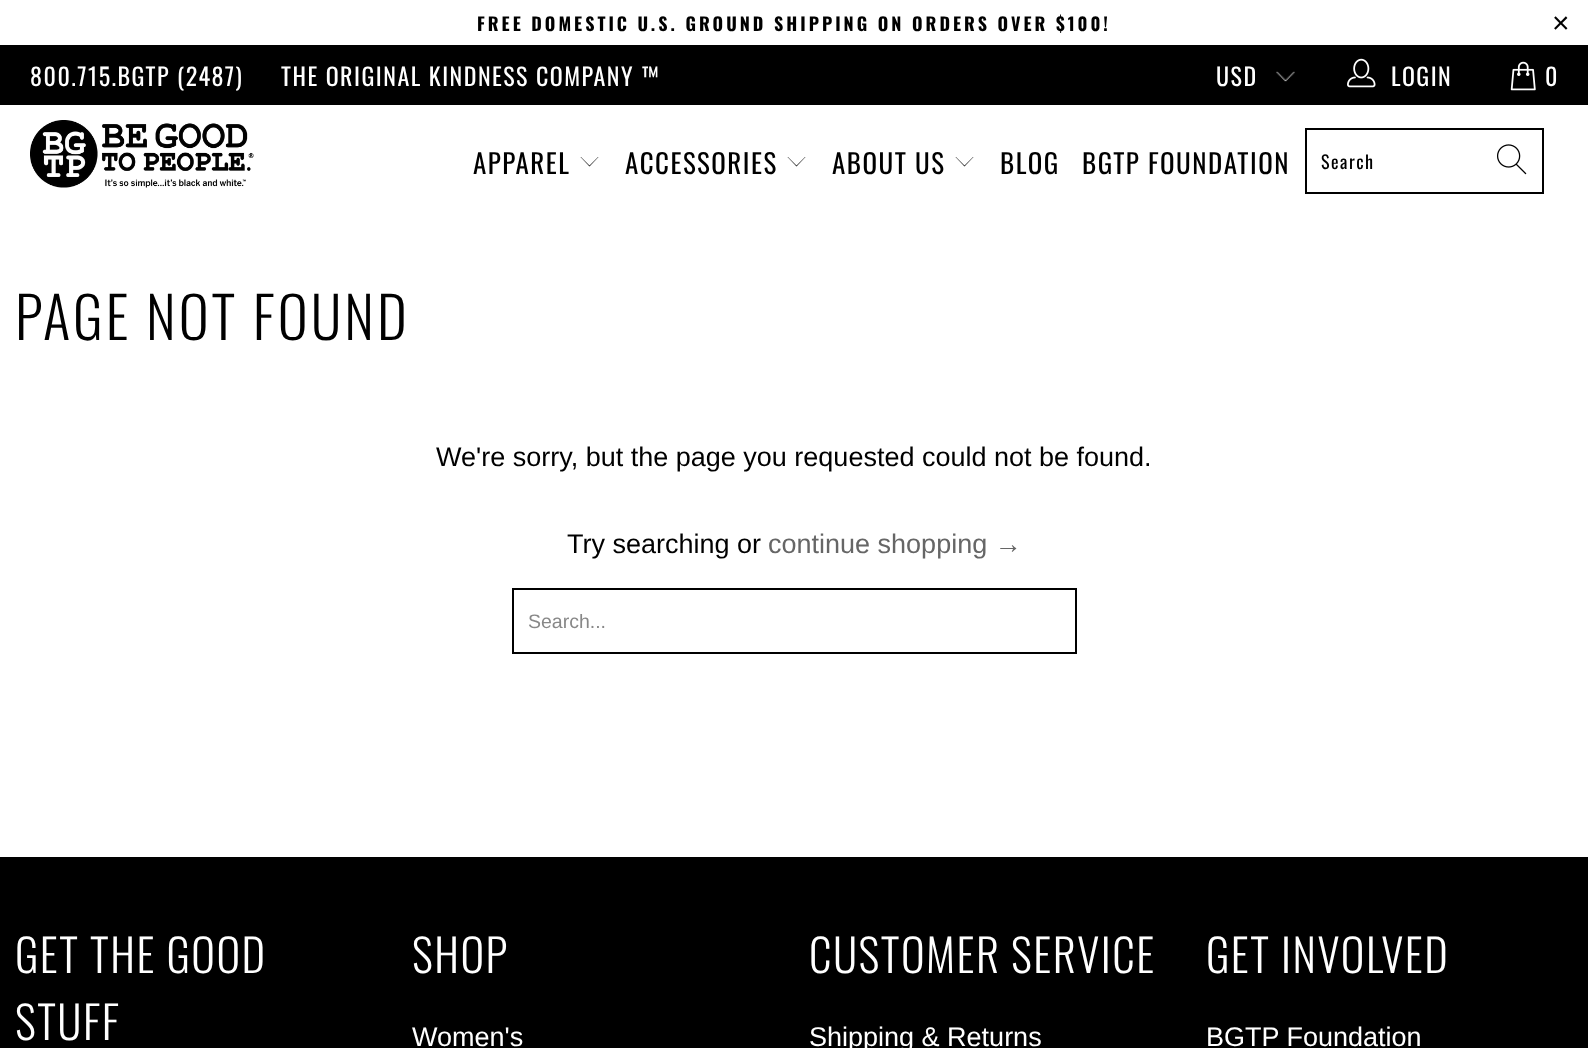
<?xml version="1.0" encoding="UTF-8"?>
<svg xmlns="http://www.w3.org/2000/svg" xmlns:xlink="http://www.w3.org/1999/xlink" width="1588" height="1048">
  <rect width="100%" height="100%" fill="#ffffff" />
  <rect y="45" width="1588" height="60" fill="#000000" />
  <image x="1276" y="71" width="19" height="11" xlink:href="image1.png" />
  <image x="1347" y="58" width="29" height="30" xlink:href="image2.png" />
  <image x="1510" y="61" width="26" height="30" xlink:href="image3.png" />
  <image x="30" y="120" width="224" height="68" xlink:href="image4.png" />
  <path d="M 589.5 166.5 l -9 -9.5 h 0.5 l 8.5 8.5 l 8.5 -8.5 h 0.5 z" fill="#000000" />
  <path d="M 796.5 166.5 l -9 -9.5 h 0.5 l 8.5 8.5 l 8.5 -8.5 h 0.5 z" fill="#000000" />
  <path d="M 964.5 166.5 l -9 -9.5 h 0.5 l 8.5 8.5 l 8.5 -8.5 h 0.5 z" fill="#000000" />
  <rect x="1306" y="129" width="237" height="64" fill="none" stroke="#000000" stroke-width="2" />
  <image x="1497" y="144" width="30" height="31" xlink:href="image5.png" />
  <rect x="513" y="589" width="563" height="64" fill="none" stroke="#000000" stroke-width="2" />
  <rect y="857" width="1588" height="191" fill="#000000" />
  <text x="477" y="31" style="font-family: Oswald; font-size: 18px; font-weight: bold; letter-spacing: 3px; fill: #000000">FREE DOMESTIC U.S. GROUND SHIPPING ON ORDERS OVER $100!</text>
  <text x="1552" y="33" style="font-family: Liberation Sans; font-size: 30px; letter-spacing: 3px; fill: #000000">×</text>
  <text x="30" y="86" style="font-family: Oswald; font-size: 24px; letter-spacing: 1.5px; fill: #ffffff">800.715.BGTP (2487)</text>
  <text x="281" y="86" style="font-family: Oswald; font-size: 24px; letter-spacing: 1.5px; fill: #ffffff">THE ORIGINAL KINDNESS COMPANY ™</text>
  <text x="1216" y="86" style="font-family: Oswald; font-size: 24px; letter-spacing: 1.5px; fill: #ffffff">USD</text>
  <text x="1391" y="86" style="font-family: Oswald; font-size: 24px; letter-spacing: 1.5px; fill: #ffffff">LOGIN</text>
  <text x="1545" y="86" style="font-family: Oswald; font-size: 24px; letter-spacing: 1.5px; fill: #ffffff">0</text>
  <text x="473" y="174" style="font-family: Oswald; font-size: 27px; letter-spacing: 1.5px; fill: #000000">APPAREL</text>
  <text x="625" y="174" style="font-family: Oswald; font-size: 27px; letter-spacing: 1.5px; fill: #000000">ACCESSORIES</text>
  <text x="832" y="174" style="font-family: Oswald; font-size: 27px; letter-spacing: 1.5px; fill: #000000">ABOUT US</text>
  <text x="1000" y="174" style="font-family: Oswald; font-size: 27px; letter-spacing: 1.5px; fill: #000000">BLOG</text>
  <text x="1082" y="174" style="font-family: Oswald; font-size: 27px; letter-spacing: 1.5px; fill: #000000">BGTP FOUNDATION</text>
  <text x="1321" y="169" style="font-family: Oswald; font-size: 18px; letter-spacing: 1.5px; fill: #000000">Search</text>
  <text x="15" y="340" style="font-family: Oswald; font-size: 57px; font-weight: 300; letter-spacing: 3px; fill: #000000">PAGE NOT FOUND</text>
  <text x="436" y="466" style="font-family: Liberation Sans; font-size: 27px; fill: #000000">We're sorry, but the page you requested could not be found.</text>
  <text x="567" y="553" style="font-family: Liberation Sans; font-size: 27px; fill: #000000">Try searching or</text>
  <text x="768" y="553" style="font-family: Liberation Sans; font-size: 27px; fill: #666666">continue shopping →</text>
  <text x="528" y="628" style="font-family: Liberation Sans; font-size: 19.5px; fill: #888888">Search...</text>
  <text x="15" y="973" style="font-family: Oswald; font-size: 45px; font-weight: 300; letter-spacing: 1.5px; fill: #ffffff">GET THE GOOD</text>
  <text x="15" y="1040" style="font-family: Oswald; font-size: 45px; font-weight: 300; letter-spacing: 1.5px; fill: #ffffff">STUFF</text>
  <text x="412" y="973" style="font-family: Oswald; font-size: 45px; font-weight: 300; letter-spacing: 1.5px; fill: #ffffff">SHOP</text>
  <text x="412" y="1046" style="font-family: Liberation Sans; font-size: 27px; fill: #ffffff">Women's</text>
  <text x="809" y="973" style="font-family: Oswald; font-size: 45px; font-weight: 300; letter-spacing: 1.5px; fill: #ffffff">CUSTOMER SERVICE</text>
  <text x="809" y="1046" style="font-family: Liberation Sans; font-size: 27px; fill: #ffffff">Shipping &amp; Returns</text>
  <text x="1206" y="973" style="font-family: Oswald; font-size: 45px; font-weight: 300; letter-spacing: 1.5px; fill: #ffffff">GET INVOLVED</text>
  <text x="1206" y="1046" style="font-family: Liberation Sans; font-size: 27px; fill: #ffffff">BGTP Foundation</text>
</svg>
